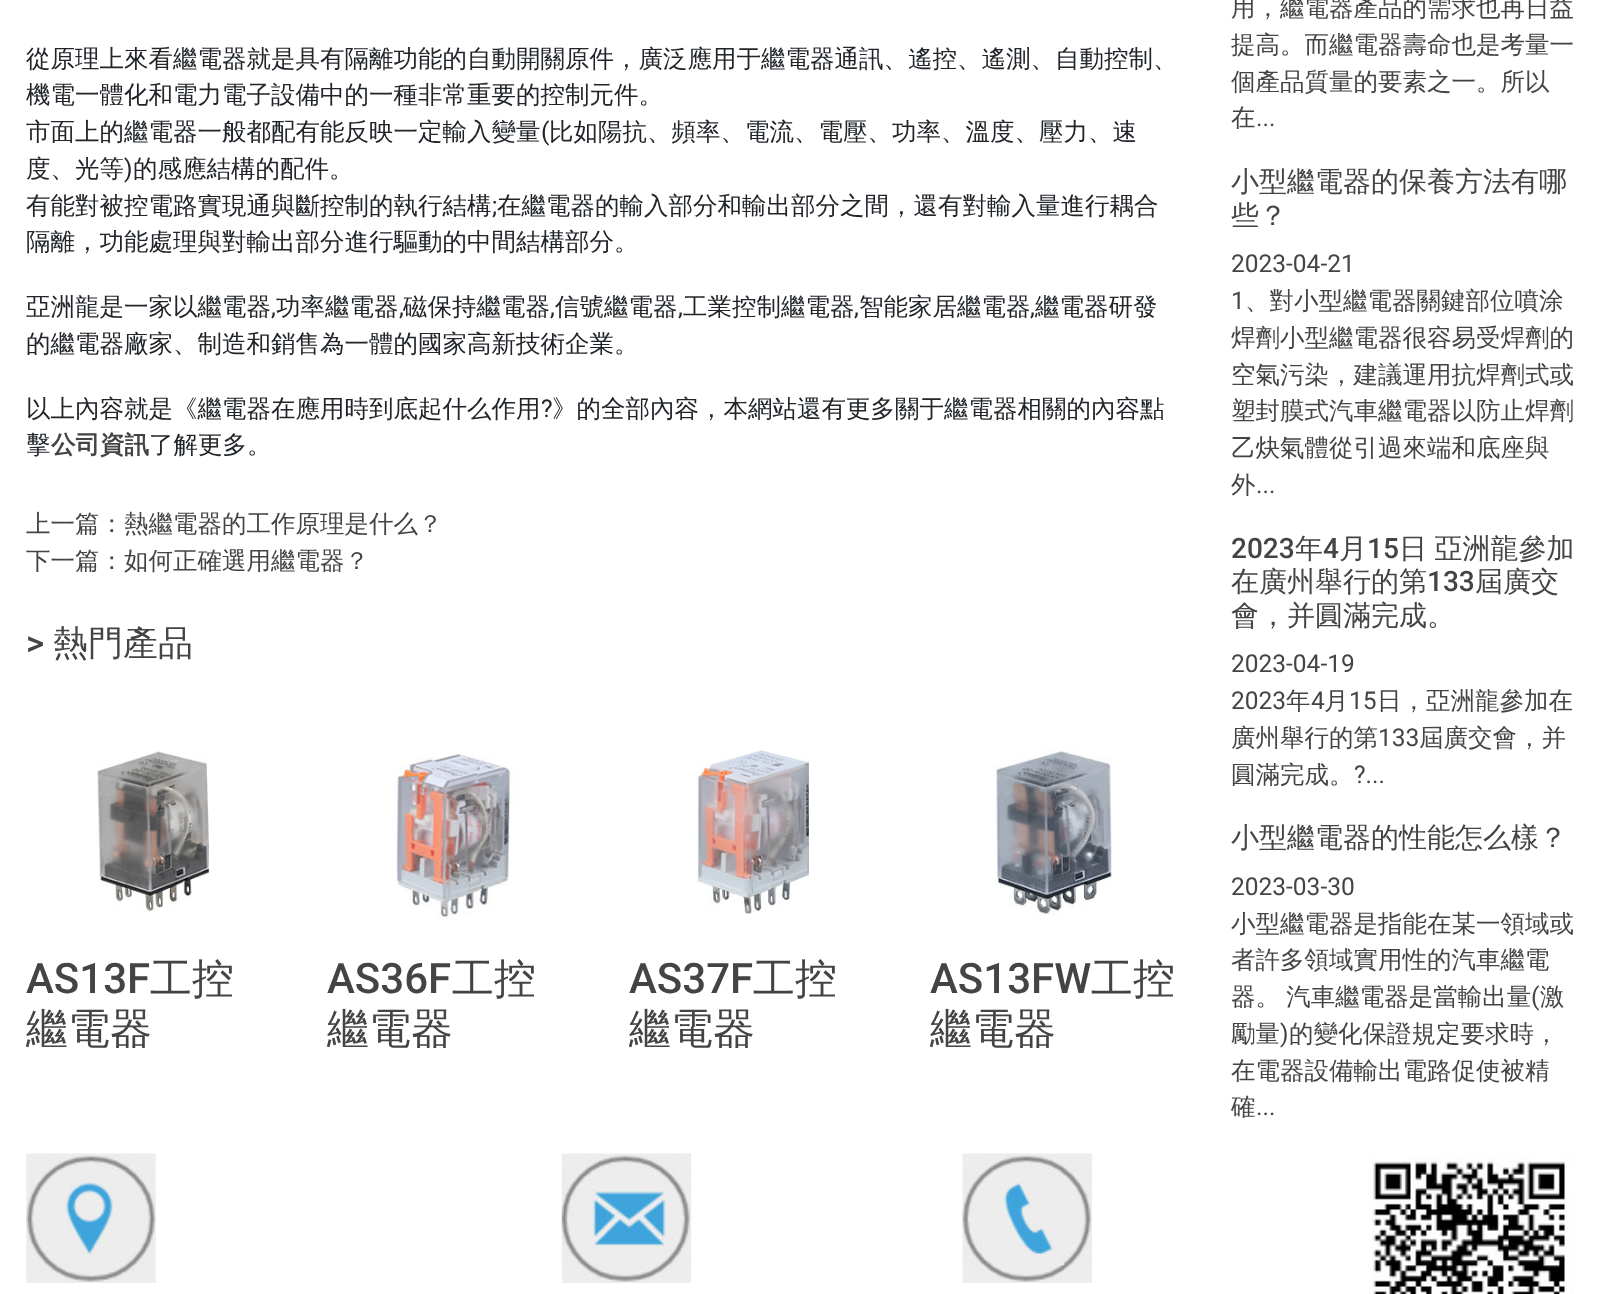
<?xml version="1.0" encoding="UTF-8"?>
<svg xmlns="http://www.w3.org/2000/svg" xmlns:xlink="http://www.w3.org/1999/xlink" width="1606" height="1294">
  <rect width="100%" height="100%" fill="#ffffff" />
  <image x="97" y="751" width="112" height="161" xlink:href="image1.png" />
  <image x="394" y="754" width="120" height="167" xlink:href="image2.png" />
  <image x="695" y="750" width="114" height="164" xlink:href="image3.png" />
  <image x="995" y="749" width="117" height="166" xlink:href="image4.png" />
  <image x="26" y="1153" width="130" height="130" xlink:href="image5.png" />
  <image x="561" y="1153" width="131" height="130" xlink:href="image6.png" />
  <image x="962" y="1153" width="130" height="130" xlink:href="image7.png" />
  <image x="1369" y="1156" width="206" height="138" xlink:href="image8.png" />
  <text x="26" y="67" style="font-family: WenQuanYi Zen Hei; font-size: 24.5px; font-weight: 500; fill: #212529">從原理上來看繼電器就是具有隔離功能的自動開關原件，廣泛應用于繼電器通訊、遙控、遙測、自動控制、</text>
  <text x="26" y="103" style="font-family: WenQuanYi Zen Hei; font-size: 24.5px; font-weight: 500; fill: #212529">機電一體化和電力電子設備中的一種非常重要的控制元件。</text>
  <text x="26" y="140" style="font-family: WenQuanYi Zen Hei; font-size: 24.5px; font-weight: 500; fill: #212529">市面上的繼電器一般都配有能反映一定輸入變量</text>
  <text x="541" y="140" style="font-family: Roboto; font-size: 24.5px; fill: #212529">(</text>
  <text x="549" y="140" style="font-family: WenQuanYi Zen Hei; font-size: 24.5px; font-weight: 500; fill: #212529">比如陽抗、頻率、電流、電壓、功率、溫度、壓力、速</text>
  <text x="26" y="177" style="font-family: WenQuanYi Zen Hei; font-size: 24.5px; font-weight: 500; fill: #212529">度、光等</text>
  <text x="124" y="177" style="font-family: Roboto; font-size: 24.5px; fill: #212529">)</text>
  <text x="133" y="177" style="font-family: WenQuanYi Zen Hei; font-size: 24.5px; font-weight: 500; fill: #212529">的感應結構的配件。</text>
  <text x="26" y="214" style="font-family: WenQuanYi Zen Hei; font-size: 24.5px; font-weight: 500; fill: #212529">有能對被控電路實現通與斷控制的執行結構</text>
  <text x="492" y="214" style="font-family: Roboto; font-size: 24.5px; fill: #212529">;</text>
  <text x="497" y="214" style="font-family: WenQuanYi Zen Hei; font-size: 24.5px; font-weight: 500; fill: #212529">在繼電器的輸入部分和輸出部分之間，還有對輸入量進行耦合</text>
  <text x="26" y="250" style="font-family: WenQuanYi Zen Hei; font-size: 24.5px; font-weight: 500; fill: #212529">隔離，功能處理與對輸出部分進行驅動的中間結構部分。</text>
  <text x="26" y="315" style="font-family: WenQuanYi Zen Hei; font-size: 24.5px; font-weight: 500; fill: #212529">亞洲龍是一家以繼電器</text>
  <text x="271" y="315" style="font-family: Roboto; font-size: 24.5px; fill: #212529">,</text>
  <text x="276" y="315" style="font-family: WenQuanYi Zen Hei; font-size: 24.5px; font-weight: 500; fill: #212529">功率繼電器</text>
  <text x="399" y="315" style="font-family: Roboto; font-size: 24.5px; fill: #212529">,</text>
  <text x="403" y="315" style="font-family: WenQuanYi Zen Hei; font-size: 24.5px; font-weight: 500; fill: #212529">磁保持繼電器</text>
  <text x="550" y="315" style="font-family: Roboto; font-size: 24.5px; fill: #212529">,</text>
  <text x="555" y="315" style="font-family: WenQuanYi Zen Hei; font-size: 24.5px; font-weight: 500; fill: #212529">信號繼電器</text>
  <text x="678" y="315" style="font-family: Roboto; font-size: 24.5px; fill: #212529">,</text>
  <text x="683" y="315" style="font-family: WenQuanYi Zen Hei; font-size: 24.5px; font-weight: 500; fill: #212529">工業控制繼電器</text>
  <text x="854" y="315" style="font-family: Roboto; font-size: 24.5px; fill: #212529">,</text>
  <text x="859" y="315" style="font-family: WenQuanYi Zen Hei; font-size: 24.5px; font-weight: 500; fill: #212529">智能家居繼電器</text>
  <text x="1030" y="315" style="font-family: Roboto; font-size: 24.5px; fill: #212529">,</text>
  <text x="1035" y="315" style="font-family: WenQuanYi Zen Hei; font-size: 24.5px; font-weight: 500; fill: #212529">繼電器研發</text>
  <text x="26" y="352" style="font-family: WenQuanYi Zen Hei; font-size: 24.5px; font-weight: 500; fill: #212529">的繼電器廠家、制造和銷售為一體的國家高新技術企業。</text>
  <text x="26" y="417" style="font-family: WenQuanYi Zen Hei; font-size: 24.5px; font-weight: 500; fill: #212529">以上內容就是《繼電器在應用時到底起什么作用</text>
  <text x="541" y="417" style="font-family: Roboto; font-size: 24.5px; fill: #212529">?</text>
  <text x="552" y="417" style="font-family: WenQuanYi Zen Hei; font-size: 24.5px; font-weight: 500; fill: #212529">》的全部內容，本網站還有更多關于繼電器相關的內容點</text>
  <text x="26" y="453" style="font-family: WenQuanYi Zen Hei; font-size: 24.5px; font-weight: 500; fill: #212529">擊</text>
  <text x="51" y="453" style="font-family: WenQuanYi Zen Hei; font-size: 24.5px; font-weight: bold; fill: #444444">公司資訊</text>
  <text x="149" y="453" style="font-family: WenQuanYi Zen Hei; font-size: 24.5px; font-weight: 500; fill: #212529">了解更多。</text>
  <text x="26" y="532" style="font-family: WenQuanYi Zen Hei; font-size: 24.5px; font-weight: 500; fill: #444444">上一篇：熱繼電器的工作原理是什么？</text>
  <text x="26" y="569" style="font-family: WenQuanYi Zen Hei; font-size: 24.5px; font-weight: 500; fill: #444444">下一篇：如何正確選用繼電器？</text>
  <text x="26" y="655" style="font-family: Roboto; font-size: 35px; font-weight: 500; fill: #444444">&gt;</text>
  <text x="53" y="655" style="font-family: WenQuanYi Zen Hei; font-size: 35px; font-weight: 500; fill: #444444">熱門產品</text>
  <text x="26" y="993" style="font-family: Roboto; font-size: 42px; font-weight: 500; fill: #444444">AS13F</text>
  <text x="150" y="993" style="font-family: WenQuanYi Zen Hei; font-size: 42px; font-weight: 500; fill: #444444">工控</text>
  <text x="26" y="1043" style="font-family: WenQuanYi Zen Hei; font-size: 42px; font-weight: 500; fill: #444444">繼電器</text>
  <text x="327" y="993" style="font-family: Roboto; font-size: 42px; font-weight: 500; fill: #444444">AS36F</text>
  <text x="452" y="993" style="font-family: WenQuanYi Zen Hei; font-size: 42px; font-weight: 500; fill: #444444">工控</text>
  <text x="327" y="1043" style="font-family: WenQuanYi Zen Hei; font-size: 42px; font-weight: 500; fill: #444444">繼電器</text>
  <text x="629" y="993" style="font-family: Roboto; font-size: 42px; font-weight: 500; fill: #444444">AS37F</text>
  <text x="753" y="993" style="font-family: WenQuanYi Zen Hei; font-size: 42px; font-weight: 500; fill: #444444">工控</text>
  <text x="629" y="1043" style="font-family: WenQuanYi Zen Hei; font-size: 42px; font-weight: 500; fill: #444444">繼電器</text>
  <text x="930" y="993" style="font-family: Roboto; font-size: 42px; font-weight: 500; fill: #444444">AS13FW</text>
  <text x="1091" y="993" style="font-family: WenQuanYi Zen Hei; font-size: 42px; font-weight: 500; fill: #444444">工控</text>
  <text x="930" y="1043" style="font-family: WenQuanYi Zen Hei; font-size: 42px; font-weight: 500; fill: #444444">繼電器</text>
  <text x="1231" y="16" style="font-family: WenQuanYi Zen Hei; font-size: 24.5px; font-weight: 500; fill: #444444">用，繼電器產品的需求也再日益</text>
  <text x="1231" y="53" style="font-family: WenQuanYi Zen Hei; font-size: 24.5px; font-weight: 500; fill: #444444">提高。而繼電器壽命也是考量一</text>
  <text x="1231" y="90" style="font-family: WenQuanYi Zen Hei; font-size: 24.5px; font-weight: 500; fill: #444444">個產品質量的要素之一。所以</text>
  <text x="1231" y="126" style="font-family: WenQuanYi Zen Hei; font-size: 24.5px; font-weight: 500; fill: #444444">在</text>
  <text x="1256" y="126" style="font-family: Roboto; font-size: 24.5px; fill: #444444">...</text>
  <text x="1231" y="191" style="font-family: WenQuanYi Zen Hei; font-size: 28px; font-weight: 500; fill: #444444">小型繼電器的保養方法有哪</text>
  <text x="1231" y="225" style="font-family: WenQuanYi Zen Hei; font-size: 28px; font-weight: 500; fill: #444444">些？</text>
  <text x="1231" y="272" style="font-family: Roboto; font-size: 24.5px; fill: #444444">2023-04-21</text>
  <text x="1231" y="309" style="font-family: Roboto; font-size: 24.5px; fill: #444444">1</text>
  <text x="1245" y="309" style="font-family: WenQuanYi Zen Hei; font-size: 24.5px; font-weight: 500; fill: #444444">、對小型繼電器關鍵部位噴涂</text>
  <text x="1231" y="346" style="font-family: WenQuanYi Zen Hei; font-size: 24.5px; font-weight: 500; fill: #444444">焊劑小型繼電器很容易受焊劑的</text>
  <text x="1231" y="383" style="font-family: WenQuanYi Zen Hei; font-size: 24.5px; font-weight: 500; fill: #444444">空氣污染，建議運用抗焊劑式或</text>
  <text x="1231" y="419" style="font-family: WenQuanYi Zen Hei; font-size: 24.5px; font-weight: 500; fill: #444444">塑封膜式汽車繼電器以防止焊劑</text>
  <text x="1231" y="456" style="font-family: WenQuanYi Zen Hei; font-size: 24.5px; font-weight: 500; fill: #444444">乙炔氣體從引過來端和底座與</text>
  <text x="1231" y="493" style="font-family: WenQuanYi Zen Hei; font-size: 24.5px; font-weight: 500; fill: #444444">外</text>
  <text x="1256" y="493" style="font-family: Roboto; font-size: 24.5px; fill: #444444">...</text>
  <text x="1231" y="558" style="font-family: Roboto; font-size: 28px; font-weight: 500; fill: #444444">2023</text>
  <text x="1295" y="558" style="font-family: WenQuanYi Zen Hei; font-size: 28px; font-weight: 500; fill: #444444">年</text>
  <text x="1323" y="558" style="font-family: Roboto; font-size: 28px; font-weight: 500; fill: #444444">4</text>
  <text x="1339" y="558" style="font-family: WenQuanYi Zen Hei; font-size: 28px; font-weight: 500; fill: #444444">月</text>
  <text x="1367" y="558" style="font-family: Roboto; font-size: 28px; font-weight: 500; fill: #444444">15</text>
  <text x="1399" y="558" word-spacing="-1" style="font-family: WenQuanYi Zen Hei; font-size: 28px; font-weight: 500; fill: #444444">日 亞洲龍參加</text>
  <text x="1231" y="591" style="font-family: WenQuanYi Zen Hei; font-size: 28px; font-weight: 500; fill: #444444">在廣州舉行的第</text>
  <text x="1427" y="591" style="font-family: Roboto; font-size: 28px; font-weight: 500; fill: #444444">133</text>
  <text x="1475" y="591" style="font-family: WenQuanYi Zen Hei; font-size: 28px; font-weight: 500; fill: #444444">屆廣交</text>
  <text x="1231" y="625" style="font-family: WenQuanYi Zen Hei; font-size: 28px; font-weight: 500; fill: #444444">會，并圓滿完成。</text>
  <text x="1231" y="672" style="font-family: Roboto; font-size: 24.5px; fill: #444444">2023-04-19</text>
  <text x="1231" y="709" style="font-family: Roboto; font-size: 24.5px; fill: #444444">2023</text>
  <text x="1286" y="709" style="font-family: WenQuanYi Zen Hei; font-size: 24.5px; font-weight: 500; fill: #444444">年</text>
  <text x="1311" y="709" style="font-family: Roboto; font-size: 24.5px; fill: #444444">4</text>
  <text x="1324" y="709" style="font-family: WenQuanYi Zen Hei; font-size: 24.5px; font-weight: 500; fill: #444444">月</text>
  <text x="1349" y="709" style="font-family: Roboto; font-size: 24.5px; fill: #444444">15</text>
  <text x="1377" y="709" style="font-family: WenQuanYi Zen Hei; font-size: 24.5px; font-weight: 500; fill: #444444">日，亞洲龍參加在</text>
  <text x="1231" y="746" style="font-family: WenQuanYi Zen Hei; font-size: 24.5px; font-weight: 500; fill: #444444">廣州舉行的第</text>
  <text x="1378" y="746" style="font-family: Roboto; font-size: 24.5px; fill: #444444">133</text>
  <text x="1419" y="746" style="font-family: WenQuanYi Zen Hei; font-size: 24.5px; font-weight: 500; fill: #444444">屆廣交會，并</text>
  <text x="1231" y="783" style="font-family: WenQuanYi Zen Hei; font-size: 24.5px; font-weight: 500; fill: #444444">圓滿完成。</text>
  <text x="1354" y="783" style="font-family: Roboto; font-size: 24.5px; fill: #444444">?...</text>
  <text x="1231" y="847" style="font-family: WenQuanYi Zen Hei; font-size: 28px; font-weight: 500; fill: #444444">小型繼電器的性能怎么樣？</text>
  <text x="1231" y="895" style="font-family: Roboto; font-size: 24.5px; fill: #444444">2023-03-30</text>
  <text x="1231" y="932" style="font-family: WenQuanYi Zen Hei; font-size: 24.5px; font-weight: 500; fill: #444444">小型繼電器是指能在某一領域或</text>
  <text x="1231" y="968" style="font-family: WenQuanYi Zen Hei; font-size: 24.5px; font-weight: 500; fill: #444444">者許多領域實用性的汽車繼電</text>
  <text x="1231" y="1005" word-spacing="-1" style="font-family: WenQuanYi Zen Hei; font-size: 24.5px; font-weight: 500; fill: #444444">器。 汽車繼電器是當輸出量</text>
  <text x="1531" y="1005" style="font-family: Roboto; font-size: 24.5px; fill: #444444">(</text>
  <text x="1540" y="1005" style="font-family: WenQuanYi Zen Hei; font-size: 24.5px; font-weight: 500; fill: #444444">激</text>
  <text x="1231" y="1042" style="font-family: WenQuanYi Zen Hei; font-size: 24.5px; font-weight: 500; fill: #444444">勵量</text>
  <text x="1280" y="1042" style="font-family: Roboto; font-size: 24.5px; fill: #444444">)</text>
  <text x="1289" y="1042" style="font-family: WenQuanYi Zen Hei; font-size: 24.5px; font-weight: 500; fill: #444444">的變化保證規定要求時，</text>
  <text x="1231" y="1079" style="font-family: WenQuanYi Zen Hei; font-size: 24.5px; font-weight: 500; fill: #444444">在電器設備輸出電路促使被精</text>
  <text x="1231" y="1115" style="font-family: WenQuanYi Zen Hei; font-size: 24.5px; font-weight: 500; fill: #444444">確</text>
  <text x="1256" y="1115" style="font-family: Roboto; font-size: 24.5px; fill: #444444">...</text>
</svg>
